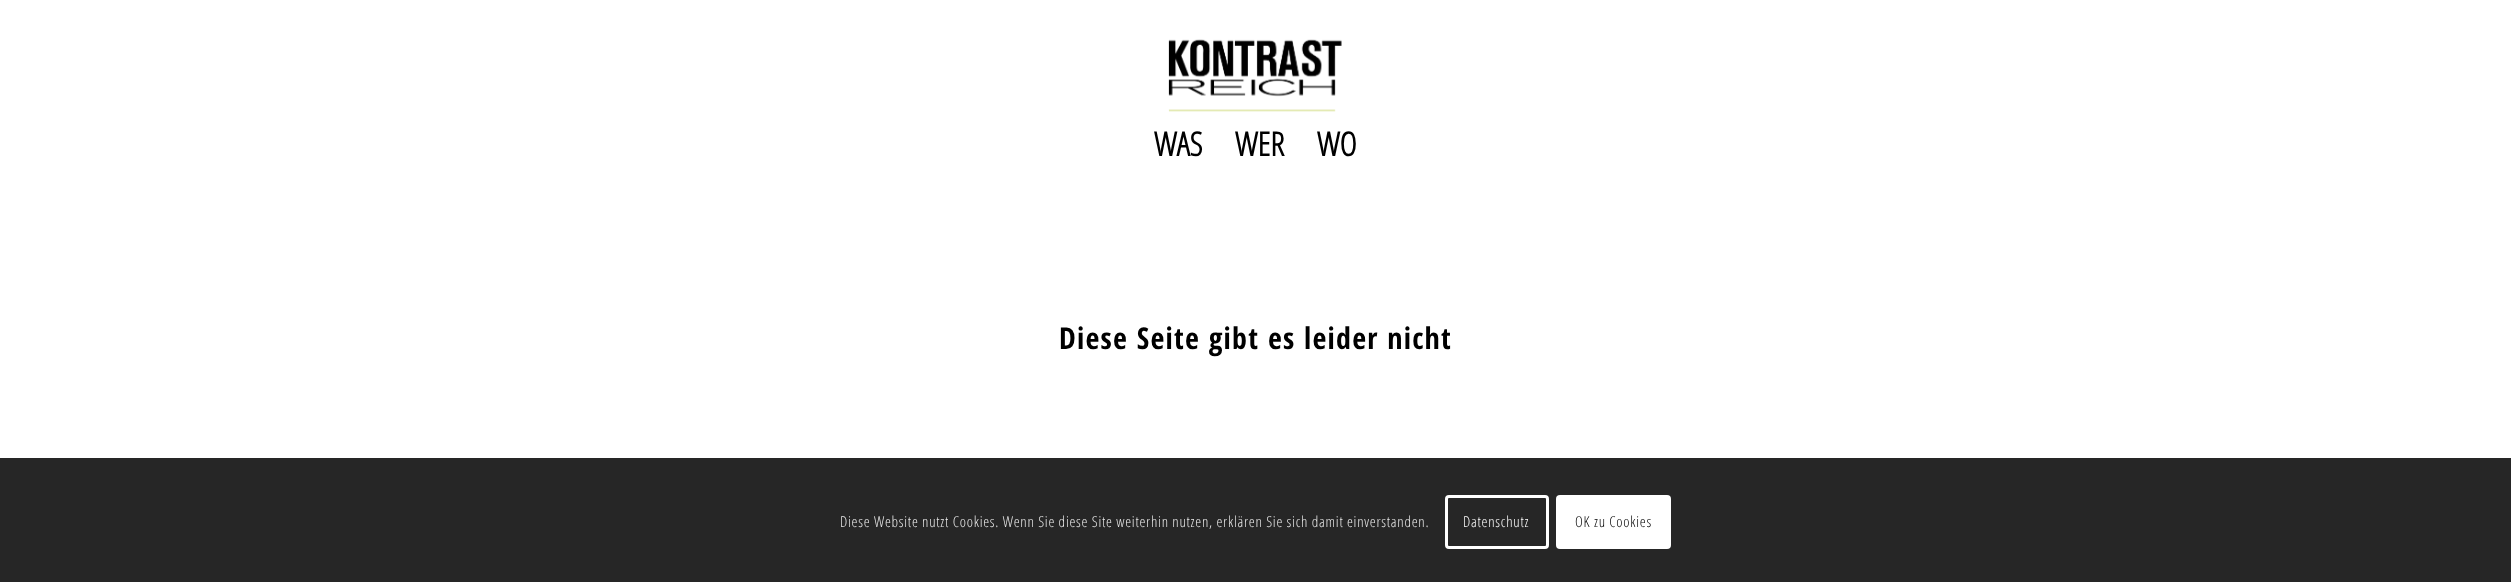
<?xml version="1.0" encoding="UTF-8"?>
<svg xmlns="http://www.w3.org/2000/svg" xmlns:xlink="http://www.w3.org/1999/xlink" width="2511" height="582">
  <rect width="100%" height="100%" fill="#ffffff" />
  <image x="1168" y="39" width="174" height="73" xlink:href="image1.png" />
  <rect y="458" width="2511" height="124" fill="#262626" />
  <rect x="1446.5" y="496.5" width="101" height="51" rx="2.5" fill="none" stroke="#ffffff" stroke-width="3" />
  <rect x="1556" y="495" width="115" height="54" rx="4" fill="#ffffff" />
  <text x="1154" y="156" style="font-family: 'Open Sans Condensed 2'; font-size: 33px; font-weight: bold; fill: #000000">WAS</text>
  <text x="1235" y="156" style="font-family: 'Open Sans Condensed 2'; font-size: 33px; font-weight: bold; fill: #000000">WER</text>
  <text x="1317" y="156" style="font-family: 'Open Sans Condensed 2'; font-size: 33px; font-weight: bold; fill: #000000">WO</text>
  <text x="1059" y="349" style="font-family: Open Sans Condensed; font-size: 30px; font-weight: bold; letter-spacing: 1.25px; fill: #000000">Diese Seite gibt es leider nicht</text>
  <text x="840" y="527" style="font-family: Open Sans Condensed; font-size: 15px; font-weight: 300; letter-spacing: 0.75px; fill: #e9e9e9">Diese Website nutzt Cookies. Wenn Sie diese Site weiterhin nutzen, erklären Sie sich damit einverstanden.</text>
  <text x="1463" y="527" style="font-family: Open Sans Condensed; font-size: 15px; font-weight: 300; letter-spacing: 0.75px; fill: #ffffff">Datenschutz</text>
  <text x="1575" y="527" style="font-family: Open Sans Condensed; font-size: 15px; font-weight: 300; letter-spacing: 0.75px; fill: #000000">OK zu Cookies</text>
</svg>
